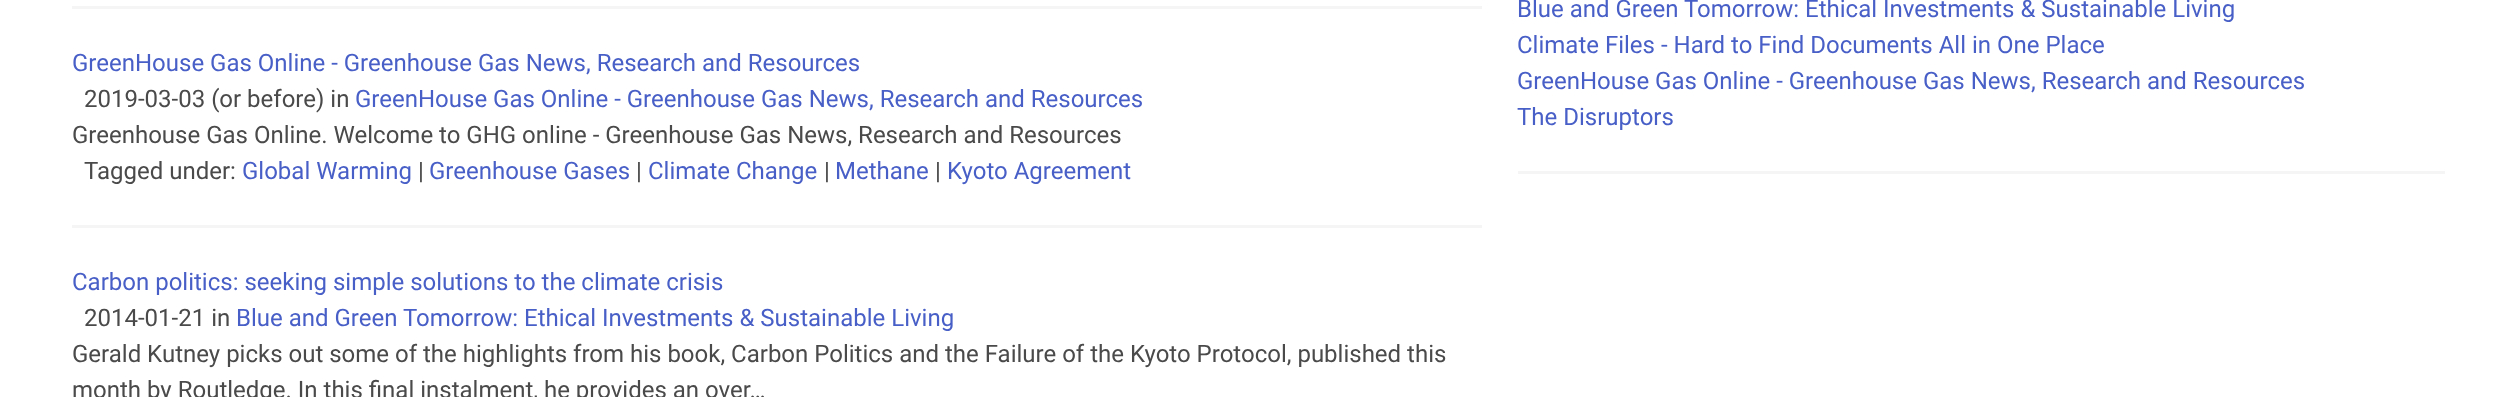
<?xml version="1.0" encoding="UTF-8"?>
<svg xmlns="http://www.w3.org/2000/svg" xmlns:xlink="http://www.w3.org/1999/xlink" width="2516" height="397">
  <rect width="100%" height="100%" fill="#ffffff" />
  <rect x="72" y="6" width="1410" height="3" fill="#f5f5f5" />
  <rect x="72" y="225" width="1410" height="3" fill="#f5f5f5" />
  <rect x="1518" y="171" width="927" height="3" fill="#f5f5f5" />
  <text x="72" y="71" style="font-family: Roboto; font-size: 24px; fill: #485fc7">GreenHouse Gas Online - Greenhouse Gas News, Research and Resources</text>
  <text x="84" y="107" style="font-family: Roboto; font-size: 24px; fill: #4a4a4a">2019-03-03 (or before) in</text>
  <text x="355" y="107" style="font-family: Roboto; font-size: 24px; fill: #485fc7">GreenHouse Gas Online - Greenhouse Gas News, Research and Resources</text>
  <text x="72" y="143" style="font-family: Roboto; font-size: 24px; fill: #4a4a4a">Greenhouse Gas Online. Welcome to GHG online - Greenhouse Gas News, Research and Resources</text>
  <text x="84" y="179" style="font-family: Roboto; font-size: 24px; fill: #4a4a4a">Tagged under:</text>
  <text x="242" y="179" style="font-family: Roboto; font-size: 24px; fill: #485fc7">Global Warming</text>
  <text x="418" y="179" style="font-family: Roboto; font-size: 24px; fill: #4a4a4a">|</text>
  <text x="429" y="179" style="font-family: Roboto; font-size: 24px; fill: #485fc7">Greenhouse Gases</text>
  <text x="636" y="179" style="font-family: Roboto; font-size: 24px; fill: #4a4a4a">|</text>
  <text x="648" y="179" style="font-family: Roboto; font-size: 24px; fill: #485fc7">Climate Change</text>
  <text x="824" y="179" style="font-family: Roboto; font-size: 24px; fill: #4a4a4a">|</text>
  <text x="835" y="179" style="font-family: Roboto; font-size: 24px; fill: #485fc7">Methane</text>
  <text x="935" y="179" style="font-family: Roboto; font-size: 24px; fill: #4a4a4a">|</text>
  <text x="947" y="179" style="font-family: Roboto; font-size: 24px; fill: #485fc7">Kyoto Agreement</text>
  <text x="72" y="290" style="font-family: Roboto; font-size: 24px; fill: #485fc7">Carbon politics: seeking simple solutions to the climate crisis</text>
  <text x="84" y="326" style="font-family: Roboto; font-size: 24px; fill: #4a4a4a">2014-01-21 in</text>
  <text x="236" y="326" style="font-family: Roboto; font-size: 24px; fill: #485fc7">Blue and Green Tomorrow: Ethical Investments &amp; Sustainable Living</text>
  <text x="72" y="362" style="font-family: Roboto; font-size: 24px; fill: #4a4a4a">Gerald Kutney picks out some of the highlights from his book, Carbon Politics and the Failure of the Kyoto Protocol, published this</text>
  <text x="72" y="398" style="font-family: Roboto; font-size: 24px; fill: #4a4a4a">month by Routledge. In this final instalment, he provides an over…</text>
  <text x="1517" y="17" style="font-family: Roboto; font-size: 24px; fill: #485fc7">Blue and Green Tomorrow: Ethical Investments &amp; Sustainable Living</text>
  <text x="1517" y="53" style="font-family: Roboto; font-size: 24px; fill: #485fc7">Climate Files - Hard to Find Documents All in One Place</text>
  <text x="1517" y="89" style="font-family: Roboto; font-size: 24px; fill: #485fc7">GreenHouse Gas Online - Greenhouse Gas News, Research and Resources</text>
  <text x="1517" y="125" style="font-family: Roboto; font-size: 24px; fill: #485fc7">The Disruptors</text>
</svg>
